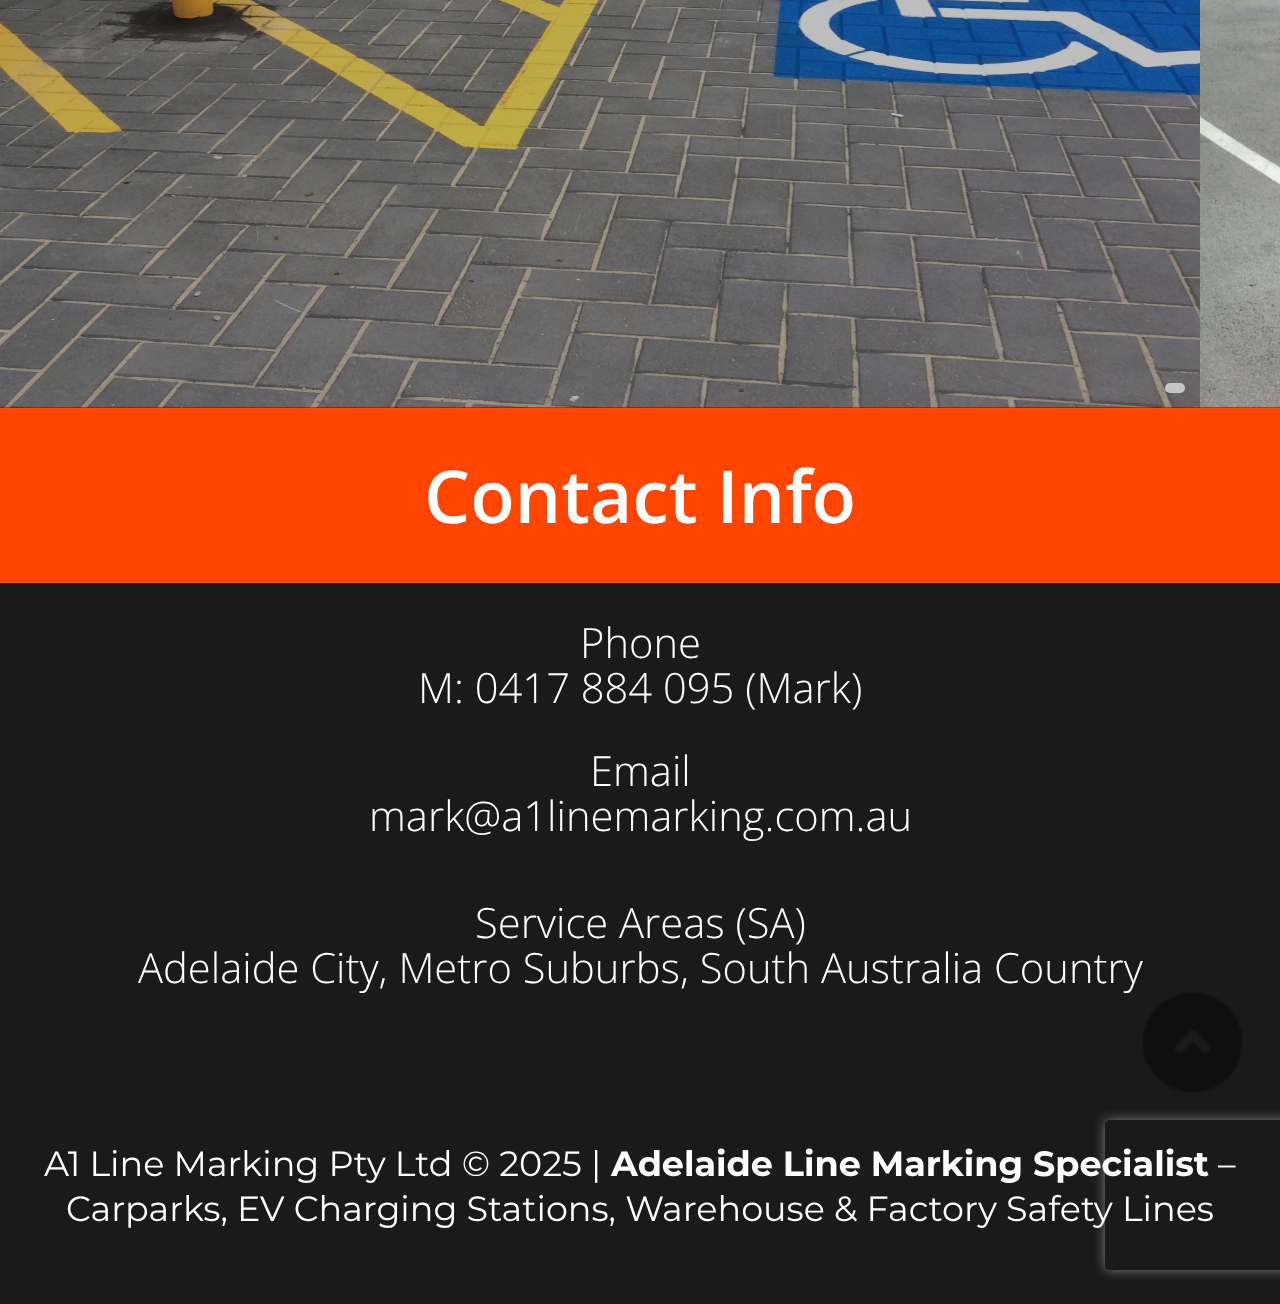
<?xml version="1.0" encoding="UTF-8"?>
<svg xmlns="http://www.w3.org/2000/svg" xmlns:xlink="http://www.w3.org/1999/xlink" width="1280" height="1304">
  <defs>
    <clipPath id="clip1"><path d="M 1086 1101 h 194 v 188 h -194 z m 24 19 h 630 c 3 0 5 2 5 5 v 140 c 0 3 -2 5 -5 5 h -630 c -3 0 -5 -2 -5 -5 v -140 c 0 -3 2 -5 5 -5 z" clip-rule="evenodd" /></clipPath>
  </defs>
  <rect width="100%" height="100%" fill="#262626" />
  <image x="0" y="0" width="1200" height="408" xlink:href="image1.png" />
  <rect x="1165" y="383" width="20" height="10" rx="5" fill="#ffffff" fill-opacity="0.63" />
  <image x="1200" y="0" width="80" height="408" xlink:href="image2.png" />
  <rect y="408" width="1280" height="175" fill="#ff4500" />
  <rect y="583" width="1280" height="721" fill="#1a1a1a" />
  <image x="1142" y="992" width="101" height="101" xlink:href="image3.png" />
  <g clip-path="url(#clip1)">
    <rect x="1105" y="1120" width="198" height="150" rx="5" fill="#808080" filter="blur(6px)" />
  </g>
  <text x="424" y="523" style="font-family: Open Sans; font-size: 73px; font-weight: 600; fill: #ffffff">Contact Info</text>
  <text x="580" y="658" style="font-family: Open Sans; font-size: 41.7px; font-weight: 300; fill: #ffffff">Phone</text>
  <text x="418" y="703" style="font-family: Open Sans; font-size: 41.7px; font-weight: 300; fill: #ffffff">M: 0417 884 095 (Mark)</text>
  <text x="590" y="786" style="font-family: Open Sans; font-size: 41.7px; font-weight: 300; fill: #ffffff">Email</text>
  <text x="369" y="831" style="font-family: Open Sans; font-size: 41.7px; font-weight: 300; fill: #ffffff">mark@a1linemarking.com.au</text>
  <text x="475" y="938" style="font-family: Open Sans; font-size: 41.7px; font-weight: 300; fill: #ffffff">Service Areas (SA)</text>
  <text x="138" y="983" style="font-family: Open Sans; font-size: 41.7px; font-weight: 300; fill: #ffffff">Adelaide City, Metro Suburbs, South Australia Country</text>
  <text x="44" y="1176" style="font-family: Montserrat; font-size: 35px; fill: #ffffff">A1 Line Marking Pty Ltd © 2025 |</text>
  <text x="611" y="1176" style="font-family: Montserrat; font-size: 35px; font-weight: bold; fill: #ffffff">Adelaide Line Marking Specialist</text>
  <text x="1218" y="1176" style="font-family: Montserrat; font-size: 35px; fill: #ffffff">–</text>
  <text x="66" y="1221" style="font-family: Montserrat; font-size: 35px; fill: #ffffff">Carparks, EV Charging Stations, Warehouse &amp; Factory Safety Lines</text>
</svg>
